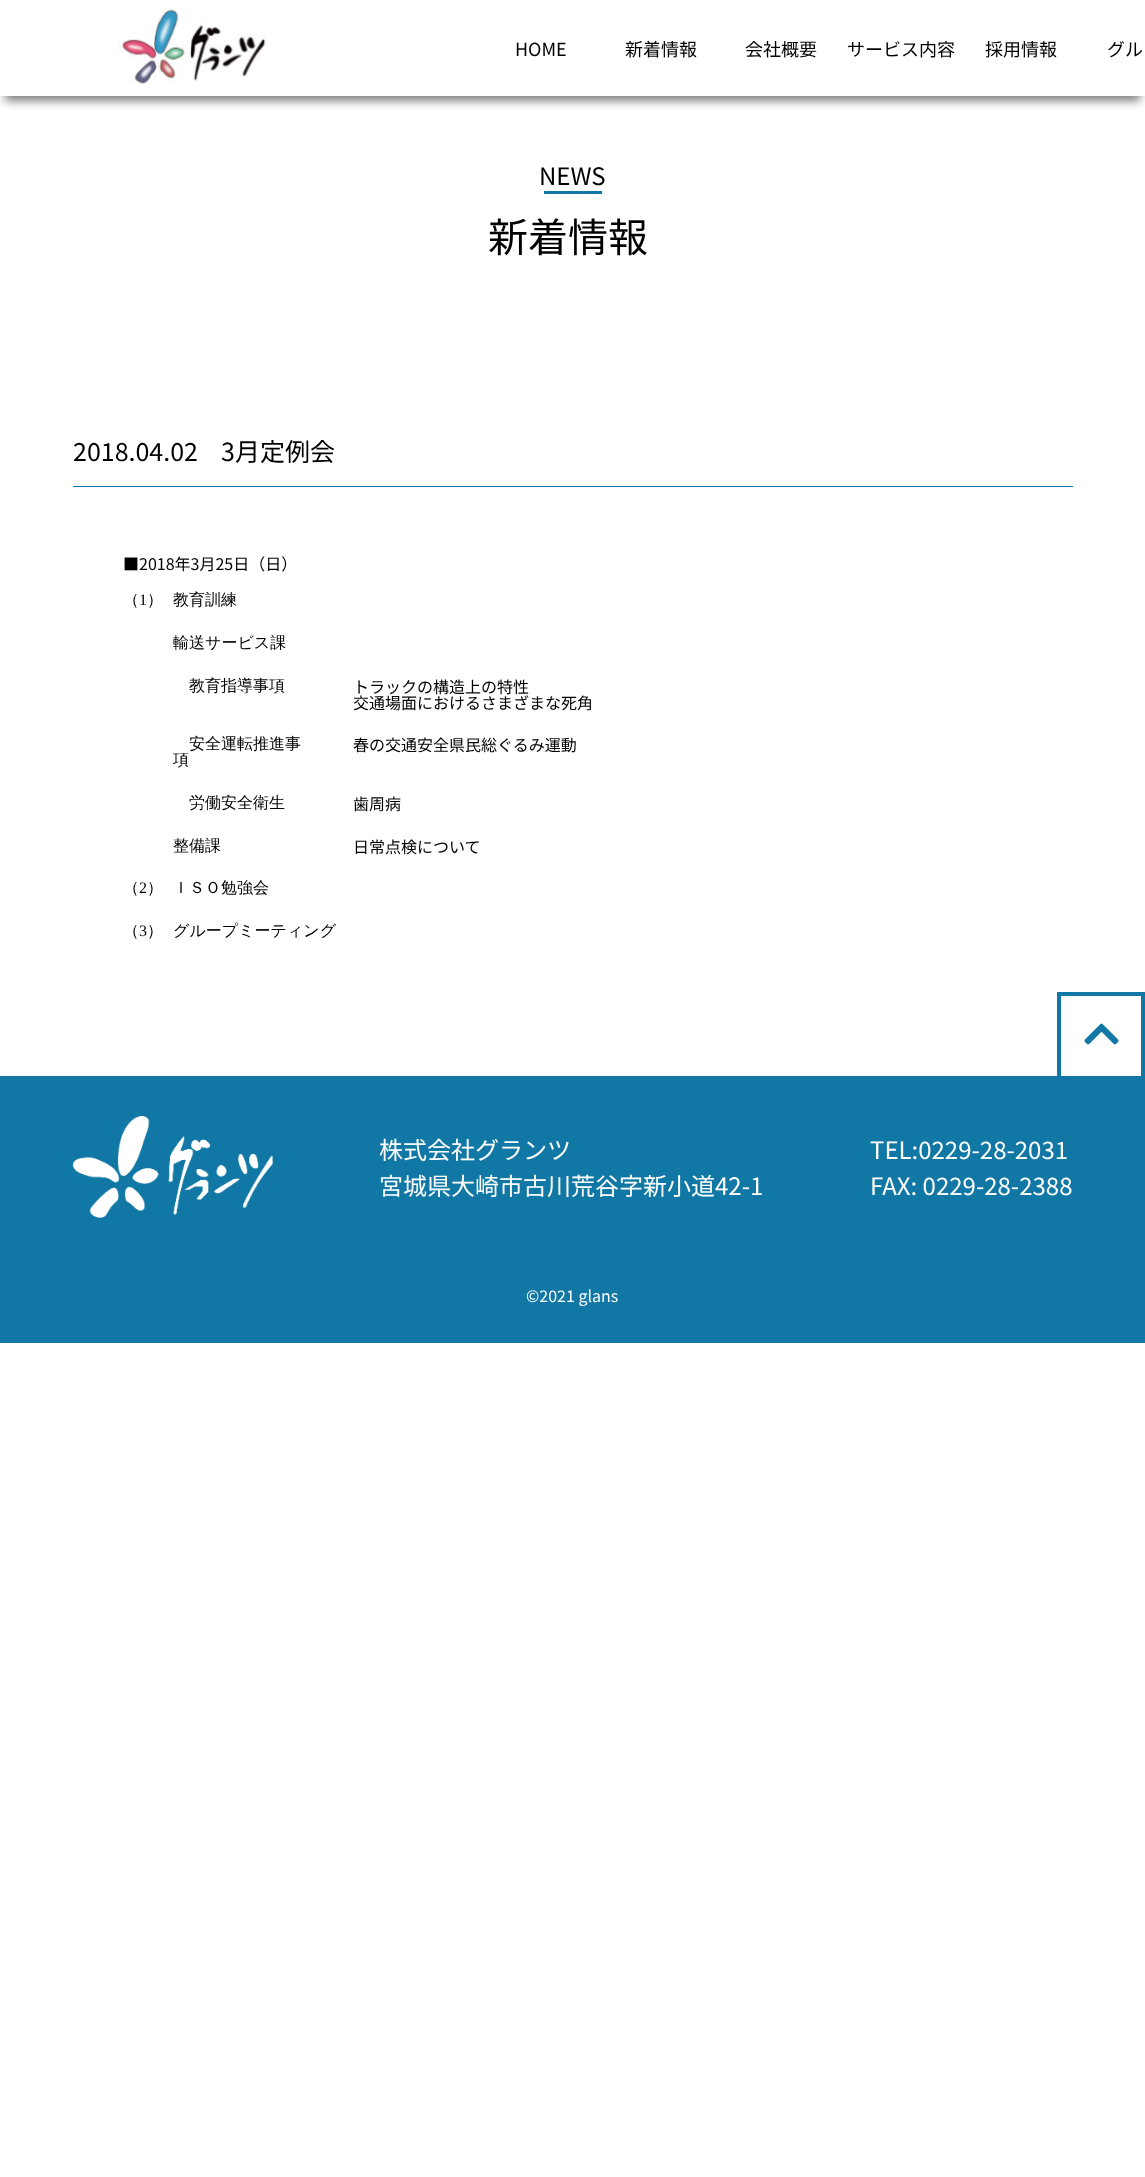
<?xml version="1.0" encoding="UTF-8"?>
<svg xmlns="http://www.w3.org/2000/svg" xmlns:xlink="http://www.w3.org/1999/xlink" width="1145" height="2177">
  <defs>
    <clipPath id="clip1"><rect x="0" y="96" width="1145" height="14" /></clipPath>
  </defs>
  <rect width="100%" height="100%" fill="#ffffff" />
  <g clip-path="url(#clip1)">
    <rect x="5" y="15" width="1135" height="86" fill="#000000" fill-opacity="0.5" filter="blur(5px)" />
  </g>
  <image x="118" y="9" width="148" height="75" xlink:href="image1.png" />
  <rect x="544" y="191" width="58" height="3" fill="#1178a5" />
  <rect x="73" y="486" width="1000" height="1" fill="#1178a5" />
  <rect x="1057" y="992" width="88" height="4" fill="#1178a5" />
  <rect x="1141" y="992" width="4" height="84" fill="#1178a5" />
  <rect x="1057" y="992" width="4" height="84" fill="#1178a5" />
  <image x="1084" y="1023" width="35" height="22" xlink:href="image2.png" />
  <rect y="1076" width="1145" height="267" fill="#1178a5" />
  <image x="73" y="1116" width="200" height="102" xlink:href="image3.png" />
  <text x="515" y="56" style="font-family: Noto Sans JP; font-size: 18px; fill: #000000">HOME</text>
  <text x="625" y="56" style="font-family: Noto Sans JP; font-size: 18px; fill: #000000">新着情報</text>
  <text x="745" y="56" style="font-family: Noto Sans JP; font-size: 18px; fill: #000000">会社概要</text>
  <text x="847" y="56" style="font-family: Noto Sans JP; font-size: 18px; fill: #000000">サービス内容</text>
  <text x="985" y="56" style="font-family: Noto Sans JP; font-size: 18px; fill: #000000">採用情報</text>
  <text x="1107" y="56" style="font-family: Noto Sans JP; font-size: 18px; fill: #000000">グル</text>
  <text x="539" y="185" style="font-family: Noto Sans JP; font-size: 24px; fill: #000000">NEWS</text>
  <text x="488" y="252" style="font-family: Noto Sans JP; font-size: 40px; fill: #000000">新着情報</text>
  <text x="73" y="461" style="font-family: Noto Sans JP; font-size: 25px; fill: #000000">2018.04.02</text>
  <text x="221" y="461" style="font-family: Noto Sans JP; font-size: 25px; fill: #000000">3月定例会</text>
  <text x="123" y="570" style="font-family: Noto Sans JP; font-size: 16px; fill: #000000">■2018年3月25日（日）</text>
  <text x="123" y="605" style="font-family: WenQuanYi Zen Hei; font-size: 16px; font-weight: 500; fill: #000000">（</text>
  <text x="139" y="605" style="font-family: Liberation Serif; font-size: 16px; fill: #000000">1</text>
  <text x="147" y="605" style="font-family: WenQuanYi Zen Hei; font-size: 16px; font-weight: 500; fill: #000000">）</text>
  <text x="173" y="605" style="font-family: WenQuanYi Zen Hei; font-size: 16px; font-weight: 500; fill: #000000">教育訓練</text>
  <text x="173" y="648" style="font-family: WenQuanYi Zen Hei; font-size: 16px; font-weight: 500; fill: #000000">輸送サービス課</text>
  <text x="189" y="691" style="font-family: WenQuanYi Zen Hei; font-size: 16px; font-weight: 500; fill: #000000">教育指導事項</text>
  <text x="353" y="693" style="font-family: Noto Sans JP; font-size: 16px; fill: #000000">トラックの構造上の特性</text>
  <text x="353" y="709" style="font-family: Noto Sans JP; font-size: 16px; fill: #000000">交通場面におけるさまざまな死角</text>
  <text x="189" y="749" style="font-family: WenQuanYi Zen Hei; font-size: 16px; font-weight: 500; fill: #000000">安全運転推進事</text>
  <text x="173" y="765" style="font-family: WenQuanYi Zen Hei; font-size: 16px; font-weight: 500; fill: #000000">項</text>
  <text x="353" y="751" style="font-family: Noto Sans JP; font-size: 16px; fill: #000000">春の交通安全県民総ぐるみ運動</text>
  <text x="189" y="808" style="font-family: WenQuanYi Zen Hei; font-size: 16px; font-weight: 500; fill: #000000">労働安全衛生</text>
  <text x="353" y="810" style="font-family: Noto Sans JP; font-size: 16px; fill: #000000">歯周病</text>
  <text x="173" y="851" style="font-family: WenQuanYi Zen Hei; font-size: 16px; font-weight: 500; fill: #000000">整備課</text>
  <text x="353" y="853" style="font-family: Noto Sans JP; font-size: 16px; fill: #000000">日常点検について</text>
  <text x="123" y="893" style="font-family: WenQuanYi Zen Hei; font-size: 16px; font-weight: 500; fill: #000000">（</text>
  <text x="139" y="893" style="font-family: Liberation Serif; font-size: 16px; fill: #000000">2</text>
  <text x="147" y="893" style="font-family: WenQuanYi Zen Hei; font-size: 16px; font-weight: 500; fill: #000000">）</text>
  <text x="173" y="893" style="font-family: WenQuanYi Zen Hei; font-size: 16px; font-weight: 500; fill: #000000">ＩＳＯ勉強会</text>
  <text x="123" y="936" style="font-family: WenQuanYi Zen Hei; font-size: 16px; font-weight: 500; fill: #000000">（</text>
  <text x="139" y="936" style="font-family: Liberation Serif; font-size: 16px; fill: #000000">3</text>
  <text x="147" y="936" style="font-family: WenQuanYi Zen Hei; font-size: 16px; font-weight: 500; fill: #000000">）</text>
  <text x="173" y="936" style="font-family: WenQuanYi Zen Hei; font-size: 16px; font-weight: 500; fill: #000000">グループミーティング</text>
  <text x="379" y="1159" style="font-family: Noto Sans JP; font-size: 24px; fill: #ffffff">株式会社グランツ</text>
  <text x="379" y="1195" style="font-family: Noto Sans JP; font-size: 24px; fill: #ffffff">宮城県大崎市古川荒谷字新小道42-1</text>
  <text x="870" y="1159" style="font-family: Noto Sans JP; font-size: 24px; fill: #ffffff">TEL:0229-28-2031</text>
  <text x="870" y="1195" style="font-family: Noto Sans JP; font-size: 24px; fill: #ffffff">FAX: 0229-28-2388</text>
  <text x="526" y="1302" style="font-family: Noto Sans JP; font-size: 16px; fill: #ffffff">©2021 glans</text>
</svg>
